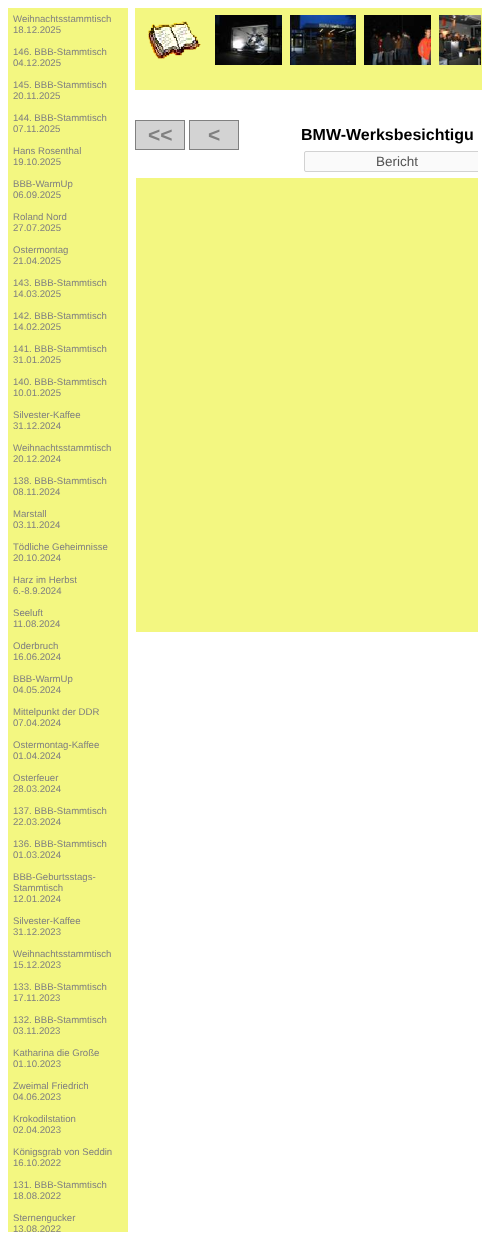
<?xml version="1.0" encoding="UTF-8"?>
<svg xmlns="http://www.w3.org/2000/svg" xmlns:xlink="http://www.w3.org/1999/xlink" width="487" height="1235">
  <defs>
    <clipPath id="clip1"><rect x="135" y="120" width="343" height="1099" /></clipPath>
  </defs>
  <rect width="100%" height="100%" fill="#ffffff" />
  <rect x="8" y="8" width="120" height="1224" fill="#f3f781" />
  <rect x="135" y="8" width="347" height="82" fill="#f3f781" />
  <image x="148" y="21" width="53" height="38" xlink:href="image1.png" />
  <image x="215" y="15" width="67" height="50" xlink:href="image2.png" />
  <image x="290" y="15" width="66" height="50" xlink:href="image3.png" />
  <image x="364" y="15" width="67" height="50" xlink:href="image4.png" />
  <image x="439" y="15" width="42" height="50" xlink:href="image5.png" />
  <rect x="135.5" y="120.5" width="49" height="29" fill="#d3d3d3" stroke="#808080" />
  <rect x="189.5" y="120.5" width="49" height="29" fill="#d3d3d3" stroke="#808080" />
  <path d="M 306 151 h 172 v 21 h -172 c -1 0 -2 -1 -2 -2 v -17 c 0 -1 1 -2 2 -2 z" fill="#fafafa" />
  <g clip-path="url(#clip1)">
    <rect x="304.5" y="151.5" width="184" height="20" rx="1.5" fill="none" stroke="#d2d2d2" />
  </g>
  <rect x="136" y="178" width="342" height="454" fill="#f3f781" />
  <text x="13" y="22" style="font-family: Liberation Sans; font-size: 9.6px; fill: #808080">Weihnachtsstammtisch</text>
  <text x="13" y="33" style="font-family: Liberation Sans; font-size: 9.6px; fill: #808080">18.12.2025</text>
  <text x="13" y="55" style="font-family: Liberation Sans; font-size: 9.6px; fill: #808080">146. BBB-Stammtisch</text>
  <text x="13" y="66" style="font-family: Liberation Sans; font-size: 9.6px; fill: #808080">04.12.2025</text>
  <text x="13" y="88" style="font-family: Liberation Sans; font-size: 9.6px; fill: #808080">145. BBB-Stammtisch</text>
  <text x="13" y="99" style="font-family: Liberation Sans; font-size: 9.6px; fill: #808080">20.11.2025</text>
  <text x="13" y="121" style="font-family: Liberation Sans; font-size: 9.6px; fill: #808080">144. BBB-Stammtisch</text>
  <text x="13" y="132" style="font-family: Liberation Sans; font-size: 9.6px; fill: #808080">07.11.2025</text>
  <text x="13" y="154" style="font-family: Liberation Sans; font-size: 9.6px; fill: #808080">Hans Rosenthal</text>
  <text x="13" y="165" style="font-family: Liberation Sans; font-size: 9.6px; fill: #808080">19.10.2025</text>
  <text x="13" y="187" style="font-family: Liberation Sans; font-size: 9.6px; fill: #808080">BBB-WarmUp</text>
  <text x="13" y="198" style="font-family: Liberation Sans; font-size: 9.6px; fill: #808080">06.09.2025</text>
  <text x="13" y="220" style="font-family: Liberation Sans; font-size: 9.6px; fill: #808080">Roland Nord</text>
  <text x="13" y="231" style="font-family: Liberation Sans; font-size: 9.6px; fill: #808080">27.07.2025</text>
  <text x="13" y="253" style="font-family: Liberation Sans; font-size: 9.6px; fill: #808080">Ostermontag</text>
  <text x="13" y="264" style="font-family: Liberation Sans; font-size: 9.6px; fill: #808080">21.04.2025</text>
  <text x="13" y="286" style="font-family: Liberation Sans; font-size: 9.6px; fill: #808080">143. BBB-Stammtisch</text>
  <text x="13" y="297" style="font-family: Liberation Sans; font-size: 9.6px; fill: #808080">14.03.2025</text>
  <text x="13" y="319" style="font-family: Liberation Sans; font-size: 9.6px; fill: #808080">142. BBB-Stammtisch</text>
  <text x="13" y="330" style="font-family: Liberation Sans; font-size: 9.6px; fill: #808080">14.02.2025</text>
  <text x="13" y="352" style="font-family: Liberation Sans; font-size: 9.6px; fill: #808080">141. BBB-Stammtisch</text>
  <text x="13" y="363" style="font-family: Liberation Sans; font-size: 9.6px; fill: #808080">31.01.2025</text>
  <text x="13" y="385" style="font-family: Liberation Sans; font-size: 9.6px; fill: #808080">140. BBB-Stammtisch</text>
  <text x="13" y="396" style="font-family: Liberation Sans; font-size: 9.6px; fill: #808080">10.01.2025</text>
  <text x="13" y="418" style="font-family: Liberation Sans; font-size: 9.6px; fill: #808080">Silvester-Kaffee</text>
  <text x="13" y="429" style="font-family: Liberation Sans; font-size: 9.6px; fill: #808080">31.12.2024</text>
  <text x="13" y="451" style="font-family: Liberation Sans; font-size: 9.6px; fill: #808080">Weihnachtsstammtisch</text>
  <text x="13" y="462" style="font-family: Liberation Sans; font-size: 9.6px; fill: #808080">20.12.2024</text>
  <text x="13" y="484" style="font-family: Liberation Sans; font-size: 9.6px; fill: #808080">138. BBB-Stammtisch</text>
  <text x="13" y="495" style="font-family: Liberation Sans; font-size: 9.6px; fill: #808080">08.11.2024</text>
  <text x="13" y="517" style="font-family: Liberation Sans; font-size: 9.6px; fill: #808080">Marstall</text>
  <text x="13" y="528" style="font-family: Liberation Sans; font-size: 9.6px; fill: #808080">03.11.2024</text>
  <text x="13" y="550" style="font-family: Liberation Sans; font-size: 9.6px; fill: #808080">Tödliche Geheimnisse</text>
  <text x="13" y="561" style="font-family: Liberation Sans; font-size: 9.6px; fill: #808080">20.10.2024</text>
  <text x="13" y="583" style="font-family: Liberation Sans; font-size: 9.6px; fill: #808080">Harz im Herbst</text>
  <text x="13" y="594" style="font-family: Liberation Sans; font-size: 9.6px; fill: #808080">6.-8.9.2024</text>
  <text x="13" y="616" style="font-family: Liberation Sans; font-size: 9.6px; fill: #808080">Seeluft</text>
  <text x="13" y="627" style="font-family: Liberation Sans; font-size: 9.6px; fill: #808080">11.08.2024</text>
  <text x="13" y="649" style="font-family: Liberation Sans; font-size: 9.6px; fill: #808080">Oderbruch</text>
  <text x="13" y="660" style="font-family: Liberation Sans; font-size: 9.6px; fill: #808080">16.06.2024</text>
  <text x="13" y="682" style="font-family: Liberation Sans; font-size: 9.6px; fill: #808080">BBB-WarmUp</text>
  <text x="13" y="693" style="font-family: Liberation Sans; font-size: 9.6px; fill: #808080">04.05.2024</text>
  <text x="13" y="715" style="font-family: Liberation Sans; font-size: 9.6px; fill: #808080">Mittelpunkt der DDR</text>
  <text x="13" y="726" style="font-family: Liberation Sans; font-size: 9.6px; fill: #808080">07.04.2024</text>
  <text x="13" y="748" style="font-family: Liberation Sans; font-size: 9.6px; fill: #808080">Ostermontag-Kaffee</text>
  <text x="13" y="759" style="font-family: Liberation Sans; font-size: 9.6px; fill: #808080">01.04.2024</text>
  <text x="13" y="781" style="font-family: Liberation Sans; font-size: 9.6px; fill: #808080">Osterfeuer</text>
  <text x="13" y="792" style="font-family: Liberation Sans; font-size: 9.6px; fill: #808080">28.03.2024</text>
  <text x="13" y="814" style="font-family: Liberation Sans; font-size: 9.6px; fill: #808080">137. BBB-Stammtisch</text>
  <text x="13" y="825" style="font-family: Liberation Sans; font-size: 9.6px; fill: #808080">22.03.2024</text>
  <text x="13" y="847" style="font-family: Liberation Sans; font-size: 9.6px; fill: #808080">136. BBB-Stammtisch</text>
  <text x="13" y="858" style="font-family: Liberation Sans; font-size: 9.6px; fill: #808080">01.03.2024</text>
  <text x="13" y="880" style="font-family: Liberation Sans; font-size: 9.6px; fill: #808080">BBB-Geburtsstags-</text>
  <text x="13" y="891" style="font-family: Liberation Sans; font-size: 9.6px; fill: #808080">Stammtisch</text>
  <text x="13" y="902" style="font-family: Liberation Sans; font-size: 9.6px; fill: #808080">12.01.2024</text>
  <text x="13" y="924" style="font-family: Liberation Sans; font-size: 9.6px; fill: #808080">Silvester-Kaffee</text>
  <text x="13" y="935" style="font-family: Liberation Sans; font-size: 9.6px; fill: #808080">31.12.2023</text>
  <text x="13" y="957" style="font-family: Liberation Sans; font-size: 9.6px; fill: #808080">Weihnachtsstammtisch</text>
  <text x="13" y="968" style="font-family: Liberation Sans; font-size: 9.6px; fill: #808080">15.12.2023</text>
  <text x="13" y="990" style="font-family: Liberation Sans; font-size: 9.6px; fill: #808080">133. BBB-Stammtisch</text>
  <text x="13" y="1001" style="font-family: Liberation Sans; font-size: 9.6px; fill: #808080">17.11.2023</text>
  <text x="13" y="1023" style="font-family: Liberation Sans; font-size: 9.6px; fill: #808080">132. BBB-Stammtisch</text>
  <text x="13" y="1034" style="font-family: Liberation Sans; font-size: 9.6px; fill: #808080">03.11.2023</text>
  <text x="13" y="1056" style="font-family: Liberation Sans; font-size: 9.6px; fill: #808080">Katharina die Große</text>
  <text x="13" y="1067" style="font-family: Liberation Sans; font-size: 9.6px; fill: #808080">01.10.2023</text>
  <text x="13" y="1089" style="font-family: Liberation Sans; font-size: 9.6px; fill: #808080">Zweimal Friedrich</text>
  <text x="13" y="1100" style="font-family: Liberation Sans; font-size: 9.6px; fill: #808080">04.06.2023</text>
  <text x="13" y="1122" style="font-family: Liberation Sans; font-size: 9.6px; fill: #808080">Krokodilstation</text>
  <text x="13" y="1133" style="font-family: Liberation Sans; font-size: 9.6px; fill: #808080">02.04.2023</text>
  <text x="13" y="1155" style="font-family: Liberation Sans; font-size: 9.6px; fill: #808080">Königsgrab von Seddin</text>
  <text x="13" y="1166" style="font-family: Liberation Sans; font-size: 9.6px; fill: #808080">16.10.2022</text>
  <text x="13" y="1188" style="font-family: Liberation Sans; font-size: 9.6px; fill: #808080">131. BBB-Stammtisch</text>
  <text x="13" y="1199" style="font-family: Liberation Sans; font-size: 9.6px; fill: #808080">18.08.2022</text>
  <text x="13" y="1221" style="font-family: Liberation Sans; font-size: 9.6px; fill: #808080">Sternengucker</text>
  <text x="13" y="1232" style="font-family: Liberation Sans; font-size: 9.6px; fill: #808080">13.08.2022</text>
  <text x="148" y="142" style="font-family: Liberation Sans; font-size: 21px; font-weight: bold; fill: #808080">&lt;&lt;</text>
  <text x="208" y="142" style="font-family: Liberation Sans; font-size: 21px; font-weight: bold; fill: #808080">&lt;</text>
  <text x="301" y="140" style="font-family: Liberation Sans; font-size: 16px; font-weight: bold; fill: #000000">BMW-Werksbesichtigu</text>
  <text x="376" y="166" style="font-family: Liberation Sans; font-size: 13.5px; fill: #545454">Bericht</text>
</svg>
